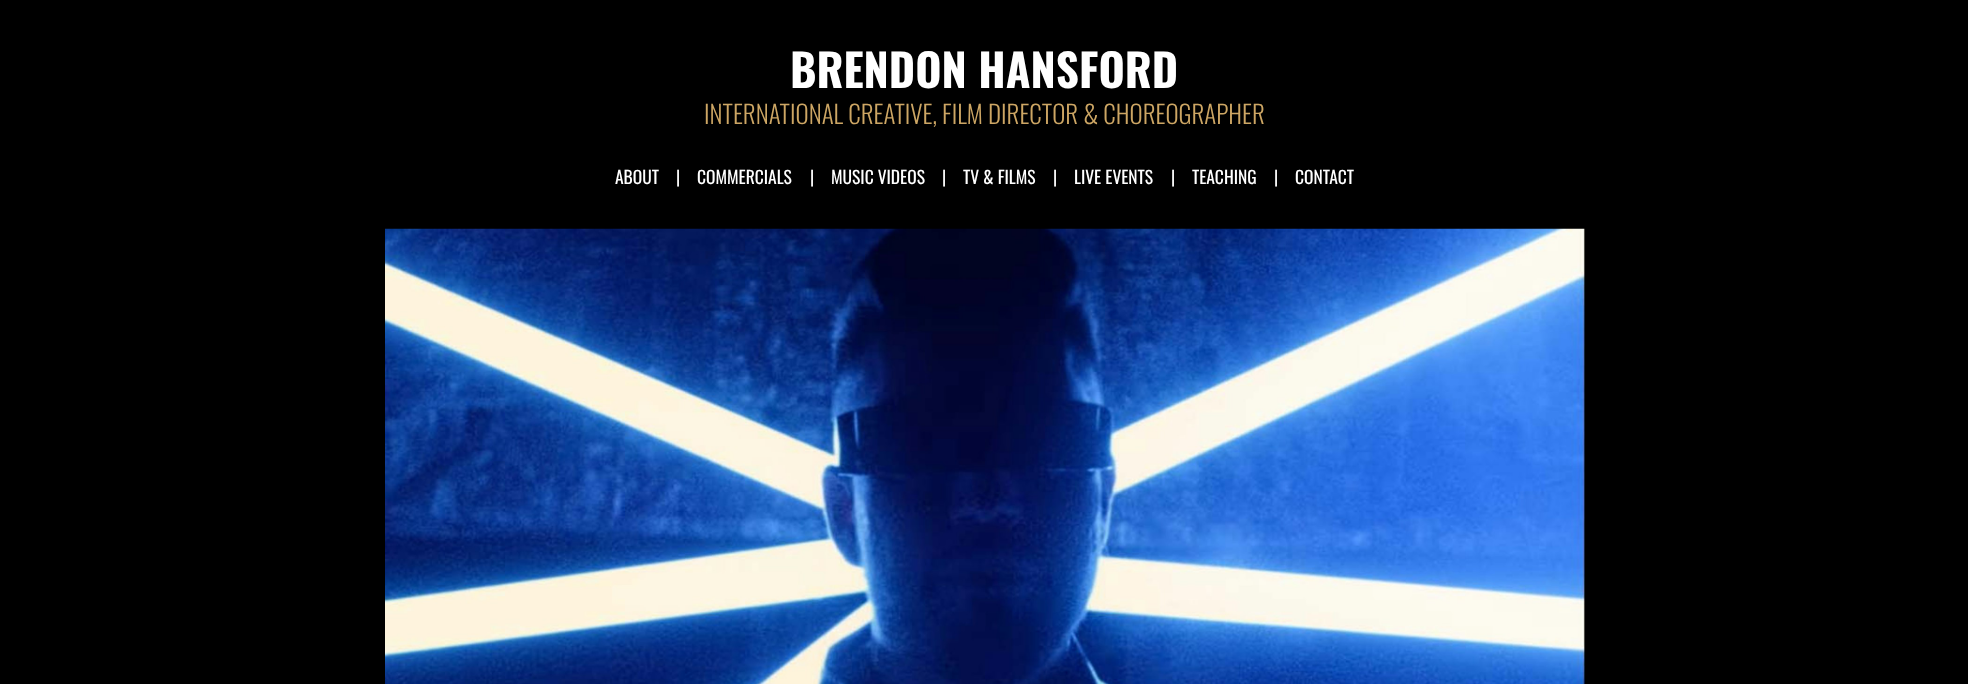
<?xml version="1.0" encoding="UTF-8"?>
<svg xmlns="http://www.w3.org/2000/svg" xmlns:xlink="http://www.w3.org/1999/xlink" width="1968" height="684">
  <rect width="100%" height="100%" fill="#000000" />
  <image x="385" y="228" width="1200" height="456" xlink:href="image1.png" />
  <text x="790" y="88" style="font-family: Oswald; font-size: 45px; font-weight: bold; fill: #ffffff">BRENDON HANSFORD</text>
  <text x="704" y="124" style="font-family: Oswald; font-size: 25px; font-weight: 300; fill: #cda664">INTERNATIONAL CREATIVE, FILM DIRECTOR &amp; CHOREOGRAPHER</text>
  <text x="615" y="184" style="font-family: Oswald; font-size: 17.5px; fill: #ffffff">ABOUT</text>
  <text x="676" y="184" style="font-family: Oswald; font-size: 17.5px; fill: #ffffff">|</text>
  <text x="697" y="184" style="font-family: Oswald; font-size: 17.5px; fill: #ffffff">COMMERCIALS</text>
  <text x="810" y="184" style="font-family: Oswald; font-size: 17.5px; fill: #ffffff">|</text>
  <text x="831" y="184" style="font-family: Oswald; font-size: 17.5px; fill: #ffffff">MUSIC VIDEOS</text>
  <text x="942" y="184" style="font-family: Oswald; font-size: 17.5px; fill: #ffffff">|</text>
  <text x="963" y="184" style="font-family: Oswald; font-size: 17.5px; fill: #ffffff">TV &amp; FILMS</text>
  <text x="1053" y="184" style="font-family: Oswald; font-size: 17.5px; fill: #ffffff">|</text>
  <text x="1074" y="184" style="font-family: Oswald; font-size: 17.5px; fill: #ffffff">LIVE EVENTS</text>
  <text x="1171" y="184" style="font-family: Oswald; font-size: 17.5px; fill: #ffffff">|</text>
  <text x="1192" y="184" style="font-family: Oswald; font-size: 17.5px; fill: #ffffff">TEACHING</text>
  <text x="1274" y="184" style="font-family: Oswald; font-size: 17.5px; fill: #ffffff">|</text>
  <text x="1295" y="184" style="font-family: Oswald; font-size: 17.5px; fill: #ffffff">CONTACT</text>
</svg>
